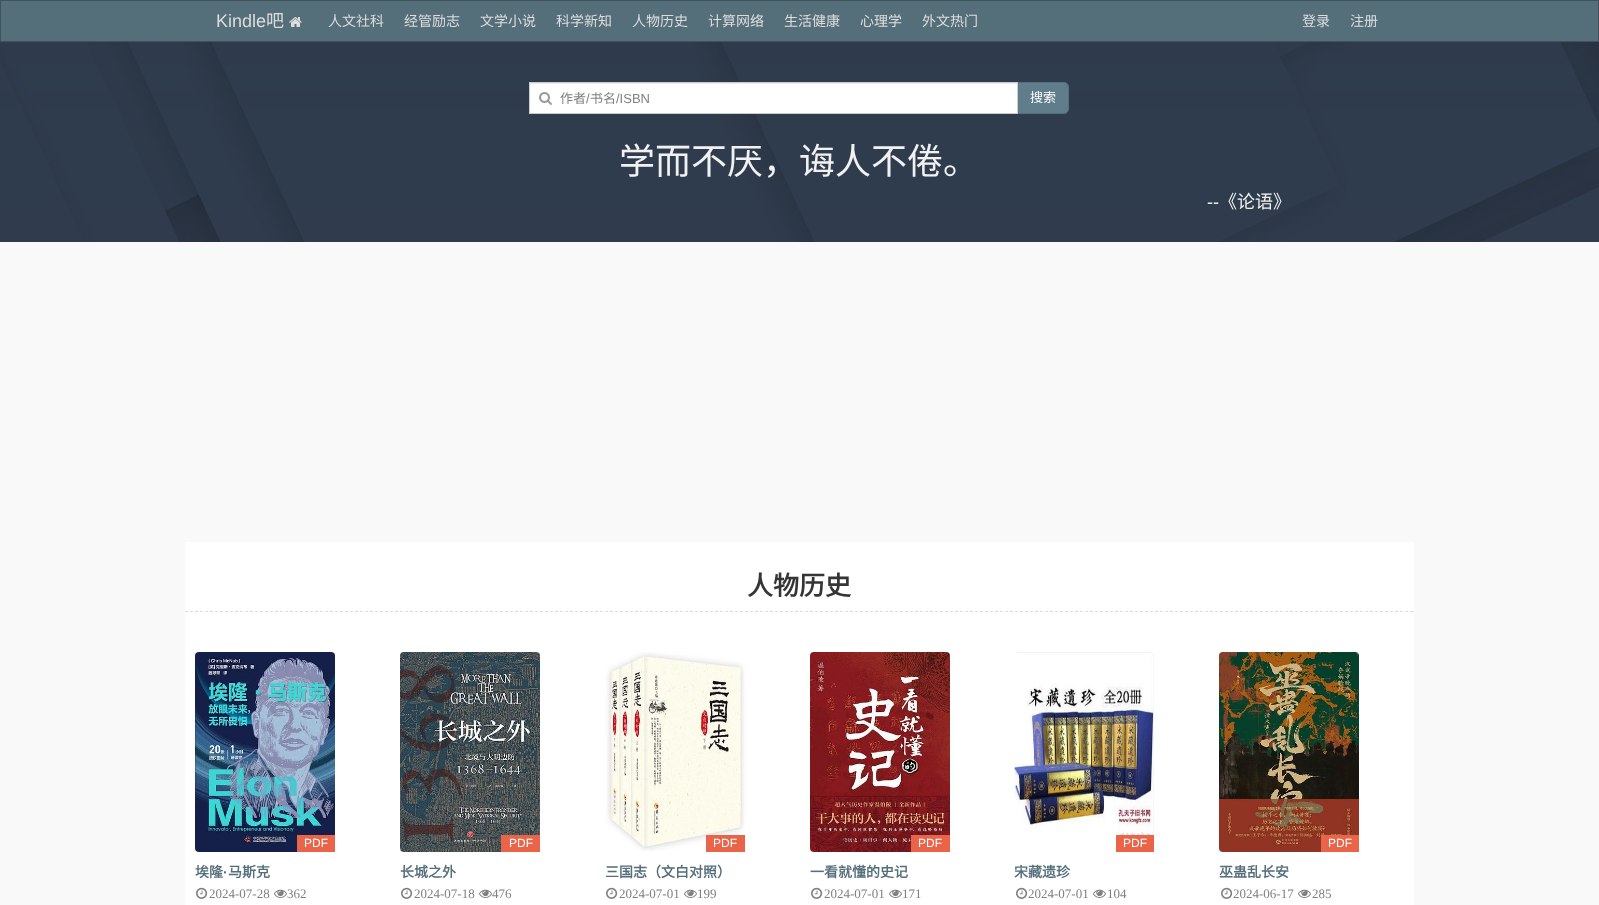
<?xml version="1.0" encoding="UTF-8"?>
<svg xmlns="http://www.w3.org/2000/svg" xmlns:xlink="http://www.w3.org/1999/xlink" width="1599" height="905">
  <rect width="100%" height="100%" fill="#ffffff" />
  <rect x="0.5" y="0.5" width="1598" height="41" fill="#546e7a" stroke="#3f535c" />
  <image x="289" y="17" width="13" height="10" xlink:href="image1.png" />
  <image x="0" y="42" width="1599" height="200" xlink:href="image2.png" />
  <rect x="530" y="84" width="487" height="29" fill="#ffffff" />
  <rect x="530" y="83" width="487" height="1" fill="#ececec" />
  <path d="M 1017.5 82.5 h 46.5 c 2.5 0 4.5 2 4.5 4.5 v 22 c 0 2.5 -2 4.5 -4.5 4.5 h -46.5 z" fill="#607d8b" stroke="#566f7c" />
  <rect x="529.5" y="82.5" width="488" height="31" fill="none" stroke="#cccccc" />
  <image x="539" y="92" width="13" height="13" xlink:href="image3.png" />
  <rect y="242" width="1599" height="663" fill="#f9f9f9" />
  <rect x="185" y="542" width="1229" height="363" fill="#ffffff" />
  <path d="M 185 611.5 h 1229" fill="none" stroke="#dddddd" stroke-dasharray="3 2" />
  <image x="195" y="652" width="140" height="200" xlink:href="image4.png" />
  <rect x="297" y="835" width="38" height="17" fill="#ea644a" />
  <image x="196" y="887" width="12" height="12" xlink:href="image5.png" />
  <image x="274" y="889" width="13" height="9" xlink:href="image6.png" />
  <image x="400" y="652" width="140" height="200" xlink:href="image7.png" />
  <rect x="501" y="835" width="39" height="17" fill="#ea644a" />
  <image x="401" y="887" width="12" height="12" xlink:href="image5.png" />
  <image x="479" y="889" width="13" height="9" xlink:href="image6.png" />
  <image x="605" y="652" width="140" height="199" xlink:href="image8.png" />
  <rect x="706" y="835" width="39" height="17" fill="#ea644a" />
  <image x="606" y="887" width="12" height="12" xlink:href="image5.png" />
  <image x="684" y="889" width="13" height="9" xlink:href="image6.png" />
  <image x="810" y="652" width="140" height="200" xlink:href="image9.png" />
  <rect x="911" y="835" width="39" height="17" fill="#ea644a" />
  <image x="811" y="887" width="12" height="12" xlink:href="image5.png" />
  <image x="889" y="889" width="13" height="9" xlink:href="image6.png" />
  <image x="1014" y="652" width="140" height="198" xlink:href="image10.png" />
  <rect x="1116" y="835" width="38" height="17" fill="#ea644a" />
  <image x="1016" y="887" width="12" height="12" xlink:href="image5.png" />
  <image x="1093" y="889" width="13" height="9" xlink:href="image6.png" />
  <image x="1219" y="652" width="140" height="200" xlink:href="image11.png" />
  <rect x="1321" y="835" width="38" height="17" fill="#ea644a" />
  <image x="1221" y="887" width="12" height="12" xlink:href="image5.png" />
  <image x="1298" y="889" width="13" height="9" xlink:href="image6.png" />
  <text x="216" y="27" style="font-family: Liberation Sans; font-size: 18px; fill: #dddddd">Kindle</text>
  <text x="266" y="27" style="font-family: Noto Sans CJK SC; font-size: 18px; fill: #dddddd">吧</text>
  <text x="328" y="26" style="font-family: Noto Sans CJK SC; font-size: 14px; fill: #dddddd">人文社科</text>
  <text x="404" y="26" style="font-family: Noto Sans CJK SC; font-size: 14px; fill: #dddddd">经管励志</text>
  <text x="480" y="26" style="font-family: Noto Sans CJK SC; font-size: 14px; fill: #dddddd">文学小说</text>
  <text x="556" y="26" style="font-family: Noto Sans CJK SC; font-size: 14px; fill: #dddddd">科学新知</text>
  <text x="632" y="26" style="font-family: Noto Sans CJK SC; font-size: 14px; fill: #dddddd">人物历史</text>
  <text x="708" y="26" style="font-family: Noto Sans CJK SC; font-size: 14px; fill: #dddddd">计算网络</text>
  <text x="784" y="26" style="font-family: Noto Sans CJK SC; font-size: 14px; fill: #dddddd">生活健康</text>
  <text x="860" y="26" style="font-family: Noto Sans CJK SC; font-size: 14px; fill: #dddddd">心理学</text>
  <text x="922" y="26" style="font-family: Noto Sans CJK SC; font-size: 14px; fill: #dddddd">外文热门</text>
  <text x="1302" y="26" style="font-family: Noto Sans CJK SC; font-size: 14px; fill: #dddddd">登录</text>
  <text x="1350" y="26" style="font-family: Noto Sans CJK SC; font-size: 14px; fill: #dddddd">注册</text>
  <text x="560" y="103" style="font-family: Noto Sans CJK SC; font-size: 13px; fill: #808080">作者</text>
  <text x="586" y="103" style="font-family: Liberation Sans; font-size: 13px; fill: #808080">/</text>
  <text x="590" y="103" style="font-family: Noto Sans CJK SC; font-size: 13px; fill: #808080">书名</text>
  <text x="616" y="103" style="font-family: Liberation Sans; font-size: 13px; fill: #808080">/ISBN</text>
  <text x="1030" y="102" style="font-family: Noto Sans CJK SC; font-size: 13px; fill: #ffffff">搜索</text>
  <text x="619" y="174" style="font-family: Noto Sans CJK SC; font-size: 36px; fill: #f1f1f1">学而不厌，诲人不倦。</text>
  <text x="1207" y="208" style="font-family: Liberation Sans; font-size: 18px; fill: #f1f1f1">--</text>
  <text x="1219" y="208" style="font-family: Noto Sans CJK SC; font-size: 18px; fill: #f1f1f1">《论语》</text>
  <text x="747" y="595" style="font-family: Noto Sans CJK SC; font-size: 26px; font-weight: bold; fill: #353535">人物历史</text>
  <text x="304" y="847" style="font-family: Liberation Sans; font-size: 12px; fill: #ffffff">PDF</text>
  <text x="195" y="877" style="font-family: Noto Sans CJK SC; font-size: 14px; font-weight: bold; fill: #546e7a">埃隆</text>
  <text x="223" y="877" style="font-family: Liberation Sans; font-size: 14px; font-weight: bold; fill: #546e7a">·</text>
  <text x="228" y="877" style="font-family: Noto Sans CJK SC; font-size: 14px; font-weight: bold; fill: #546e7a">马斯克</text>
  <text x="209" y="898" style="font-family: Liberation Serif; font-size: 13px; fill: #808080">2024-07-28</text>
  <text x="287" y="898" style="font-family: Liberation Serif; font-size: 13px; fill: #808080">362</text>
  <text x="509" y="847" style="font-family: Liberation Sans; font-size: 12px; fill: #ffffff">PDF</text>
  <text x="400" y="877" style="font-family: Noto Sans CJK SC; font-size: 14px; font-weight: bold; fill: #546e7a">长城之外</text>
  <text x="414" y="898" style="font-family: Liberation Serif; font-size: 13px; fill: #808080">2024-07-18</text>
  <text x="492" y="898" style="font-family: Liberation Serif; font-size: 13px; fill: #808080">476</text>
  <text x="713" y="847" style="font-family: Liberation Sans; font-size: 12px; fill: #ffffff">PDF</text>
  <text x="605" y="877" style="font-family: Noto Sans CJK SC; font-size: 14px; font-weight: bold; fill: #546e7a">三国志（文白对照）</text>
  <text x="619" y="898" style="font-family: Liberation Serif; font-size: 13px; fill: #808080">2024-07-01</text>
  <text x="697" y="898" style="font-family: Liberation Serif; font-size: 13px; fill: #808080">199</text>
  <text x="918" y="847" style="font-family: Liberation Sans; font-size: 12px; fill: #ffffff">PDF</text>
  <text x="810" y="877" style="font-family: Noto Sans CJK SC; font-size: 14px; font-weight: bold; fill: #546e7a">一看就懂的史记</text>
  <text x="824" y="898" style="font-family: Liberation Serif; font-size: 13px; fill: #808080">2024-07-01</text>
  <text x="902" y="898" style="font-family: Liberation Serif; font-size: 13px; fill: #808080">171</text>
  <text x="1123" y="847" style="font-family: Liberation Sans; font-size: 12px; fill: #ffffff">PDF</text>
  <text x="1014" y="877" style="font-family: Noto Sans CJK SC; font-size: 14px; font-weight: bold; fill: #546e7a">宋藏遗珍</text>
  <text x="1028" y="898" style="font-family: Liberation Serif; font-size: 13px; fill: #808080">2024-07-01</text>
  <text x="1107" y="898" style="font-family: Liberation Serif; font-size: 13px; fill: #808080">104</text>
  <text x="1328" y="847" style="font-family: Liberation Sans; font-size: 12px; fill: #ffffff">PDF</text>
  <text x="1219" y="877" style="font-family: Noto Sans CJK SC; font-size: 14px; font-weight: bold; fill: #546e7a">巫蛊乱长安</text>
  <text x="1233" y="898" style="font-family: Liberation Serif; font-size: 13px; fill: #808080">2024-06-17</text>
  <text x="1312" y="898" style="font-family: Liberation Serif; font-size: 13px; fill: #808080">285</text>
</svg>
